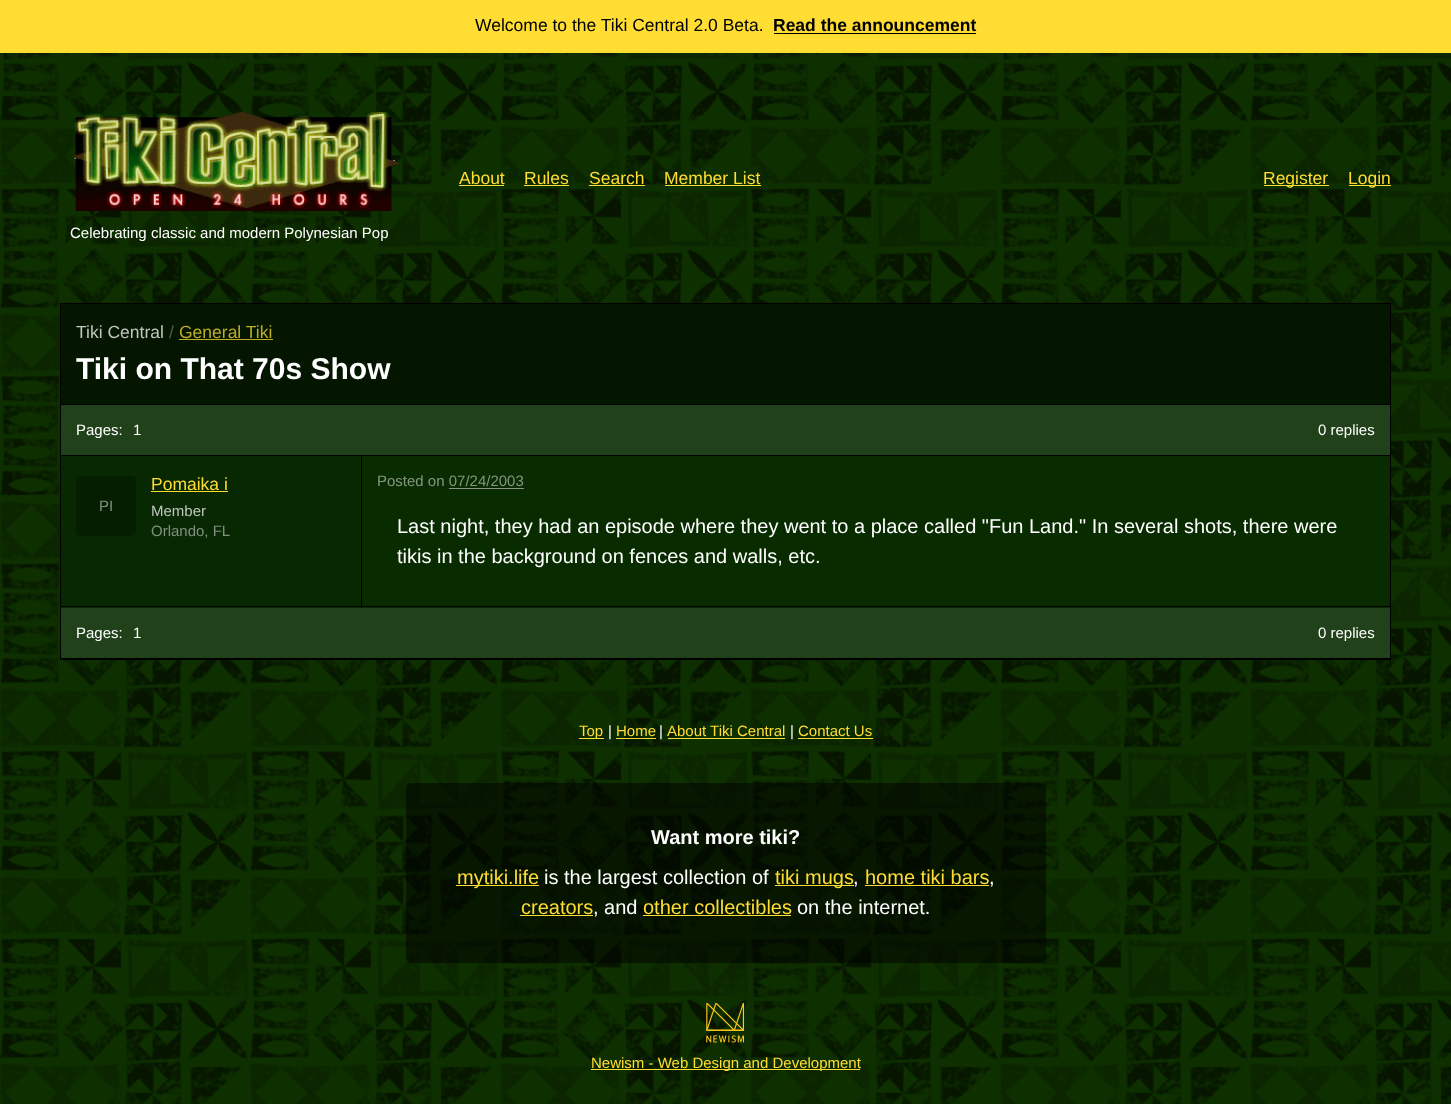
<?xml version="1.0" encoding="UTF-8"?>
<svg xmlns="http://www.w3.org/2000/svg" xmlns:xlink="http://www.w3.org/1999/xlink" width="1451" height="1104">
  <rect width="100%" height="100%" fill="#ffffff" />
  <image x="0" y="53" width="1451" height="1051" xlink:href="image1.png" />
  <rect width="1451" height="53" fill="#ffdd33" />
  <rect x="774" y="33" width="202" height="1" fill="#000000" />
  <rect x="459" y="185" width="45" height="1" fill="#ffdd33" />
  <rect x="524" y="185" width="45" height="1" fill="#ffdd33" />
  <rect x="589" y="185" width="56" height="1" fill="#ffdd33" />
  <rect x="665" y="185" width="96" height="1" fill="#ffdd33" />
  <rect x="1264" y="185" width="65" height="1" fill="#ffdd33" />
  <rect x="1349" y="185" width="42" height="1" fill="#ffdd33" />
  <image x="70" y="112" width="329" height="99" xlink:href="image2.png" />
  <rect x="360" y="456" width="1030" height="152" fill="#082c00" />
  <rect x="60.5" y="303.5" width="1330" height="356" fill="none" stroke="#000000" />
  <rect x="61" y="304" width="1329" height="100" fill="#041600" />
  <rect x="61" y="404" width="1329" height="1" fill="#000000" />
  <rect x="179" y="339" width="94" height="1" fill="#c0ab26" />
  <rect x="61" y="405" width="1329" height="50" fill="#21411a" />
  <rect x="61" y="455" width="1329" height="1" fill="#000000" />
  <rect x="61" y="456" width="299" height="152" fill="#072800" />
  <rect x="61" y="606" width="1330" height="1" fill="#000000" />
  <rect x="361" y="456" width="1" height="152" fill="#000000" />
  <rect x="76" y="476" width="60" height="60" rx="5" fill="#051e00" />
  <rect x="151" y="491" width="77" height="1" fill="#ffdd33" />
  <rect x="449" y="488" width="75" height="1" fill="#849680" />
  <rect x="61" y="608" width="1329" height="50" fill="#21411a" />
  <rect x="61" y="658" width="1329" height="1" fill="#000000" />
  <rect x="579" y="738" width="25" height="1" fill="#ffdd33" />
  <rect x="616" y="738" width="40" height="1" fill="#ffdd33" />
  <rect x="668" y="738" width="117" height="1" fill="#ffdd33" />
  <rect x="798" y="738" width="75" height="1" fill="#ffdd33" />
  <rect x="406" y="783" width="640" height="180" rx="5" fill="#000000" fill-opacity="0.5" />
  <rect x="456" y="885" width="83" height="1" fill="#ffdd33" />
  <rect x="775" y="885" width="79" height="1" fill="#ffdd33" />
  <rect x="865" y="885" width="124" height="1" fill="#ffdd33" />
  <rect x="520" y="915" width="73" height="1" fill="#ffdd33" />
  <rect x="643" y="915" width="148" height="1" fill="#ffdd33" />
  <image x="706" y="1003" width="39" height="40" xlink:href="image3.png" />
  <rect x="591" y="1069" width="269" height="1" fill="#ffdd33" />
  <text x="475" y="31" style="font-family: Liberation Sans; font-size: 17.5px; fill: #000000">Welcome to the Tiki Central 2.0 Beta.</text>
  <text x="773" y="31" style="font-family: Liberation Sans; font-size: 17.5px; font-weight: bold; fill: #000000">Read the announcement</text>
  <text x="459" y="184" style="font-family: Liberation Sans; font-size: 17.5px; fill: #ffdd33">About</text>
  <text x="524" y="184" style="font-family: Liberation Sans; font-size: 17.5px; fill: #ffdd33">Rules</text>
  <text x="589" y="184" style="font-family: Liberation Sans; font-size: 17.5px; fill: #ffdd33">Search</text>
  <text x="664" y="184" style="font-family: Liberation Sans; font-size: 17.5px; fill: #ffdd33">Member List</text>
  <text x="1263" y="184" style="font-family: Liberation Sans; font-size: 17.5px; fill: #ffdd33">Register</text>
  <text x="1348" y="184" style="font-family: Liberation Sans; font-size: 17.5px; fill: #ffdd33">Login</text>
  <text x="70" y="238" style="font-family: Liberation Sans; font-size: 15px; fill: #ffffff">Celebrating classic and modern Polynesian Pop</text>
  <text x="76" y="338" style="font-family: Liberation Sans; font-size: 17.5px; fill: #c0c5bf">Tiki Central</text>
  <text x="169" y="338" style="font-family: Liberation Sans; font-size: 17.5px; fill: #4f5c4d">/</text>
  <text x="179" y="338" style="font-family: Liberation Sans; font-size: 17.5px; fill: #c0ab26">General Tiki</text>
  <text x="76" y="379" style="font-family: Liberation Sans; font-size: 30px; font-weight: bold; fill: #ffffff">Tiki on That 70s Show</text>
  <text x="76" y="435" style="font-family: Liberation Sans; font-size: 15px; fill: #ffffff">Pages:</text>
  <text x="133" y="435" style="font-family: Liberation Sans; font-size: 15px; fill: #ffffff">1</text>
  <text x="1318" y="435" style="font-family: Liberation Sans; font-size: 15px; fill: #ffffff">0 replies</text>
  <text x="99" y="511" style="font-family: Liberation Sans; font-size: 15px; fill: #828f80">PI</text>
  <text x="151" y="490" style="font-family: Liberation Sans; font-size: 17.5px; fill: #ffdd33">Pomaika i</text>
  <text x="151" y="516" style="font-family: Liberation Sans; font-size: 15px; fill: #c0c5bf">Member</text>
  <text x="151" y="536" style="font-family: Liberation Sans; font-size: 15px; fill: #828f80">Orlando, FL</text>
  <text x="377" y="486" style="font-family: Liberation Sans; font-size: 15px; fill: #849680">Posted on 07/24/2003</text>
  <text x="397" y="533" style="font-family: Liberation Sans; font-size: 20px; fill: #ffffff">Last night, they had an episode where they went to a place called "Fun Land." In several shots, there were</text>
  <text x="397" y="563" style="font-family: Liberation Sans; font-size: 20px; fill: #ffffff">tikis in the background on fences and walls, etc.</text>
  <text x="76" y="638" style="font-family: Liberation Sans; font-size: 15px; fill: #ffffff">Pages:</text>
  <text x="133" y="638" style="font-family: Liberation Sans; font-size: 15px; fill: #ffffff">1</text>
  <text x="1318" y="638" style="font-family: Liberation Sans; font-size: 15px; fill: #ffffff">0 replies</text>
  <text x="579" y="736" style="font-family: Liberation Sans; font-size: 15px; fill: #ffdd33">Top</text>
  <text x="608" y="736" style="font-family: Liberation Sans; font-size: 15px; fill: #ffffff">|</text>
  <text x="616" y="736" style="font-family: Liberation Sans; font-size: 15px; fill: #ffdd33">Home</text>
  <text x="659" y="736" style="font-family: Liberation Sans; font-size: 15px; fill: #ffffff">|</text>
  <text x="667" y="736" style="font-family: Liberation Sans; font-size: 15px; fill: #ffdd33">About Tiki Central</text>
  <text x="790" y="736" style="font-family: Liberation Sans; font-size: 15px; fill: #ffffff">|</text>
  <text x="798" y="736" style="font-family: Liberation Sans; font-size: 15px; fill: #ffdd33">Contact Us</text>
  <text x="651" y="844" style="font-family: Liberation Sans; font-size: 20px; font-weight: bold; fill: #ffffff">Want more tiki?</text>
  <text x="457" y="884" style="font-family: Liberation Sans; font-size: 20px; fill: #ffdd33">mytiki.life</text>
  <text x="544" y="884" style="font-family: Liberation Sans; font-size: 20px; fill: #ffffff">is the largest collection of</text>
  <text x="775" y="884" style="font-family: Liberation Sans; font-size: 20px; fill: #ffdd33">tiki mugs</text>
  <text x="853" y="884" style="font-family: Liberation Sans; font-size: 20px; fill: #ffffff">,</text>
  <text x="865" y="884" style="font-family: Liberation Sans; font-size: 20px; fill: #ffdd33">home tiki bars</text>
  <text x="989" y="884" style="font-family: Liberation Sans; font-size: 20px; fill: #ffffff">,</text>
  <text x="521" y="914" style="font-family: Liberation Sans; font-size: 20px; fill: #ffdd33">creators</text>
  <text x="593" y="914" style="font-family: Liberation Sans; font-size: 20px; fill: #ffffff">, and</text>
  <text x="643" y="914" style="font-family: Liberation Sans; font-size: 20px; fill: #ffdd33">other collectibles</text>
  <text x="797" y="914" style="font-family: Liberation Sans; font-size: 20px; fill: #ffffff">on the internet.</text>
  <text x="591" y="1068" style="font-family: Liberation Sans; font-size: 15px; fill: #ffdd33">Newism - Web Design and Development</text>
</svg>
